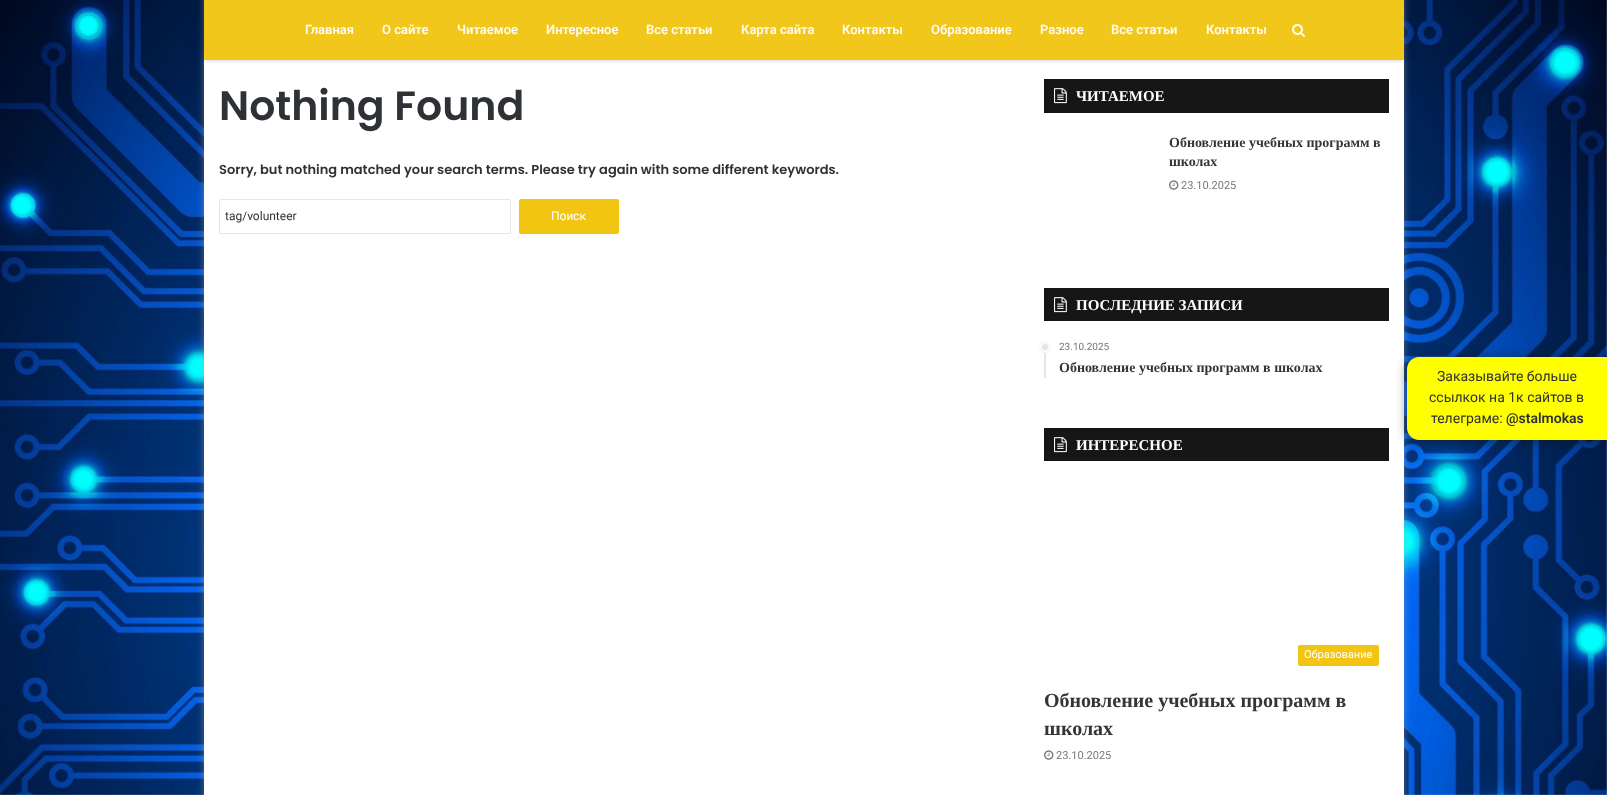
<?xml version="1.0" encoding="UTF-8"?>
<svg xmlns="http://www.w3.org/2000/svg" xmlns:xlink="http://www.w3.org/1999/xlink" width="1607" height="795">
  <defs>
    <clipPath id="clip1"><path d="M 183 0 h 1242 v 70 h -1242 z m 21 -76 h 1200 v 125 h -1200 z" clip-rule="evenodd" /></clipPath>
    <clipPath id="clip2"><rect x="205" y="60" width="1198" height="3" /></clipPath>
  </defs>
  <rect width="100%" height="100%" fill="#ffffff" />
  <image x="0" y="0" width="1607" height="795" xlink:href="image1.png" />
  <rect x="204" y="-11" width="1200" height="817" fill="#ababab" fill-opacity="0.5" filter="blur(3.5px)" />
  <rect x="204" width="1200" height="795" fill="#ffffff" />
  <g clip-path="url(#clip1)">
    <rect x="199" y="-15" width="1210" height="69" fill="#000000" fill-opacity="0.1" filter="blur(5px)" />
  </g>
  <g clip-path="url(#clip2)">
    <rect x="206" y="6" width="1196" height="56" fill="#000000" fill-opacity="0.1" filter="blur(1px)" />
  </g>
  <rect x="204" width="1200" height="60" fill="#f1c40f" fill-opacity="0.95" />
  <image x="1292" y="24" width="13" height="13" xlink:href="image2.png" />
  <rect x="219.5" y="199.5" width="291" height="34" rx="1.5" fill="none" stroke="#e6e6e6" />
  <rect x="519" y="199" width="100" height="35" rx="2" fill="#f1c511" />
  <rect x="1044" y="79" width="345" height="34" fill="#161616" />
  <image x="1054" y="88" width="13" height="16" xlink:href="image3.png" />
  <image x="1169" y="180" width="10" height="10" xlink:href="image4.png" />
  <rect x="1044" y="288" width="345" height="33" fill="#161616" />
  <image x="1054" y="297" width="13" height="16" xlink:href="image3.png" />
  <rect x="1044" y="341" width="2" height="37" fill="#e6e6e6" />
  <circle cx="1045" cy="347" r="6" fill="#e6e6e6" />
  <circle cx="1045" cy="347" r="4.5" fill="none" stroke="#ffffff" stroke-opacity="0.8" stroke-width="3" />
  <rect x="1044" y="428" width="345" height="33" fill="#161616" />
  <image x="1054" y="437" width="13" height="16" xlink:href="image3.png" />
  <rect x="1298" y="645" width="81" height="21" rx="2" fill="#f1c511" />
  <image x="1044" y="750" width="10" height="10" xlink:href="image4.png" />
  <rect x="1407" y="358" width="200" height="83" rx="12" fill="#14140a" fill-opacity="0.56" filter="blur(6px)" />
  <path d="M 1419 357 h 188 v 83 h -188 c -6.5 0 -12 -5.5 -12 -12 v -59 c 0 -6.5 5.5 -12 12 -12 z" fill="#ffff00" />
  <text x="305" y="34" style="font-family: Roboto; font-size: 13px; font-weight: 600; fill: #fefcf4">Главная</text>
  <text x="382" y="34" style="font-family: Roboto; font-size: 13px; font-weight: 600; fill: #fefcf4">О сайте</text>
  <text x="457" y="34" style="font-family: Roboto; font-size: 13px; font-weight: 600; fill: #fefcf4">Читаемое</text>
  <text x="546" y="34" style="font-family: Roboto; font-size: 13px; font-weight: 600; fill: #fefcf4">Интересное</text>
  <text x="646" y="34" style="font-family: Roboto; font-size: 13px; font-weight: 600; fill: #fefcf4">Все статьи</text>
  <text x="741" y="34" style="font-family: Roboto; font-size: 13px; font-weight: 600; fill: #fefcf4">Карта сайта</text>
  <text x="842" y="34" style="font-family: Roboto; font-size: 13px; font-weight: 600; fill: #fefcf4">Контакты</text>
  <text x="931" y="34" style="font-family: Roboto; font-size: 13px; font-weight: 600; fill: #fefcf4">Образование</text>
  <text x="1040" y="34" style="font-family: Roboto; font-size: 13px; font-weight: 600; fill: #fefcf4">Разное</text>
  <text x="1111" y="34" style="font-family: Roboto; font-size: 13px; font-weight: 600; fill: #fefcf4">Все статьи</text>
  <text x="1206" y="34" style="font-family: Roboto; font-size: 13px; font-weight: 600; fill: #fefcf4">Контакты</text>
  <text x="219" y="120" style="font-family: Poppins; font-size: 41px; font-weight: 600; fill: #2e3136">Nothing Found</text>
  <text x="219" y="174" style="font-family: Poppins; font-size: 13px; font-weight: 600; fill: #2e3136">Sorry, but nothing matched your search terms. Please try again with some different keywords.</text>
  <text x="225" y="220" style="font-family: Roboto; font-size: 12px; fill: #2e3136">tag/volunteer</text>
  <text x="551" y="220" style="font-family: Roboto; font-size: 12px; fill: #ffffff">Поиск</text>
  <text x="1076" y="101" style="font-family: Liberation Serif; font-size: 15px; font-weight: bold; fill: #ffffff">ЧИТАЕМОЕ</text>
  <text x="1169" y="147" style="font-family: Liberation Serif; font-size: 14px; font-weight: bold; fill: #353535">Обновление учебных программ в</text>
  <text x="1169" y="166" style="font-family: Liberation Serif; font-size: 14px; font-weight: bold; fill: #353535">школах</text>
  <text x="1181" y="189" style="font-family: Roboto; font-size: 11px; fill: #777777">23.10.2025</text>
  <text x="1076" y="310" style="font-family: Liberation Serif; font-size: 15px; font-weight: bold; fill: #ffffff">ПОСЛЕДНИЕ ЗАПИСИ</text>
  <text x="1059" y="350" style="font-family: Roboto; font-size: 10px; fill: #777777">23.10.2025</text>
  <text x="1059" y="372" style="font-family: Liberation Serif; font-size: 14px; font-weight: bold; fill: #353535">Обновление учебных программ в школах</text>
  <text x="1076" y="450" style="font-family: Liberation Serif; font-size: 15px; font-weight: bold; fill: #ffffff">ИНТЕРЕСНОЕ</text>
  <text x="1304" y="658" style="font-family: Roboto; font-size: 11px; fill: #ffffff">Образование</text>
  <text x="1044" y="707" style="font-family: Liberation Serif; font-size: 20px; font-weight: bold; fill: #353535">Обновление учебных программ в</text>
  <text x="1044" y="735" style="font-family: Liberation Serif; font-size: 20px; font-weight: bold; fill: #353535">школах</text>
  <text x="1056" y="759" style="font-family: Roboto; font-size: 11px; fill: #777777">23.10.2025</text>
  <text x="1437" y="381" style="font-family: Roboto; font-size: 14px; fill: #2e3136">Заказывайте больше</text>
  <text x="1429" y="402" style="font-family: Roboto; font-size: 14px; fill: #2e3136">ссылкок на 1к сайтов в</text>
  <text x="1431" y="423" style="font-family: Roboto; font-size: 14px; fill: #2e3136">телеграме:</text>
  <text x="1506" y="423" style="font-family: Roboto; font-size: 14px; font-weight: 600; fill: #2e3136">@stalmokas</text>
</svg>
